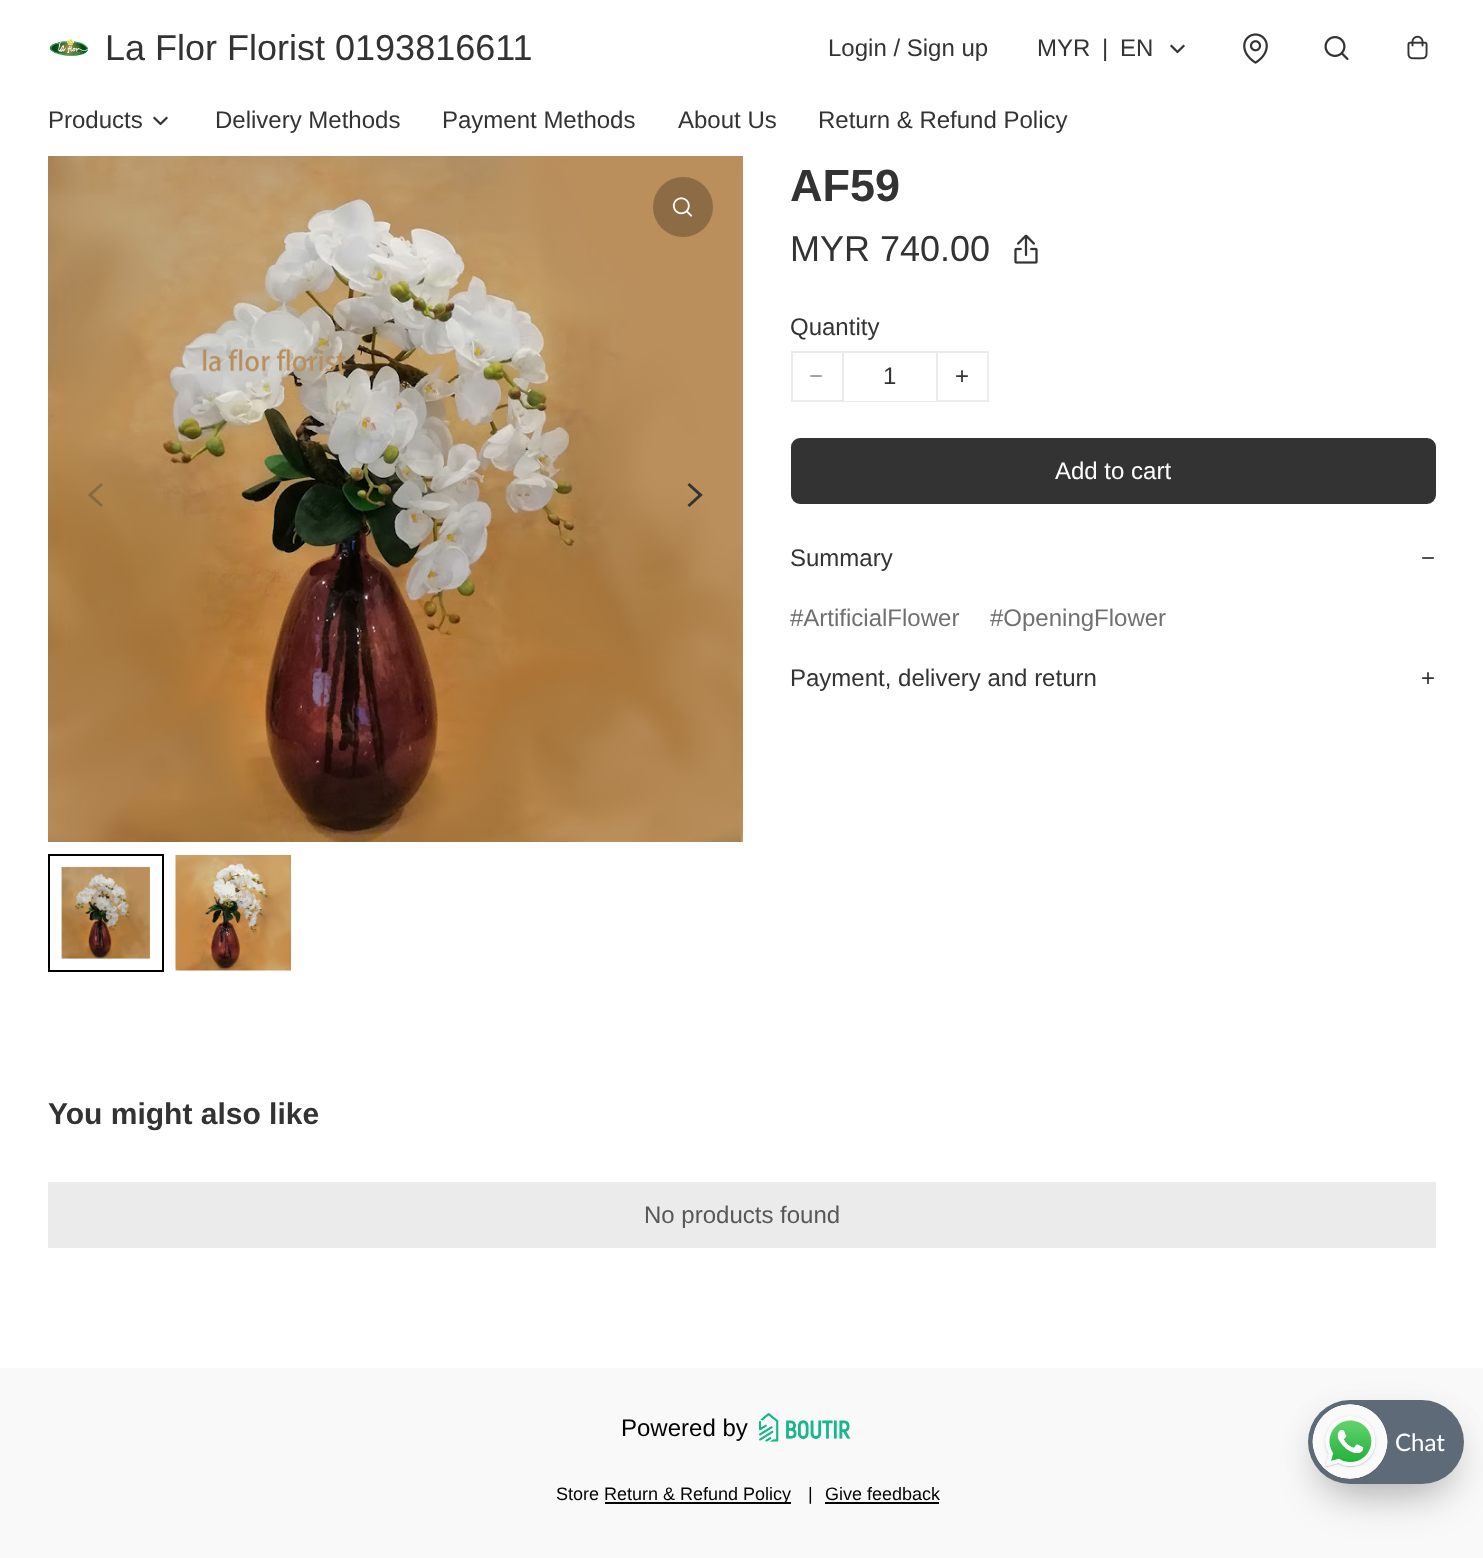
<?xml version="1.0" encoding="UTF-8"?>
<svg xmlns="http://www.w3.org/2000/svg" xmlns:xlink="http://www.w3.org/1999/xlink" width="1483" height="1558">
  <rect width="100%" height="100%" fill="#ffffff" />
  <image x="48" y="36" width="41" height="21" xlink:href="image1.png" />
  <path d="M 1171.5 46 l 6 6 l 6 -6" fill="none" stroke="#333333" stroke-width="2.2" stroke-linecap="square" stroke-linejoin="round" />
  <image x="1243" y="33" width="25" height="31" xlink:href="image2.png" />
  <image x="1324" y="36" width="25" height="24" xlink:href="image3.png" />
  <image x="1407" y="35" width="21" height="25" xlink:href="image4.png" />
  <path d="M 154.5 118 l 6 6 l 6 -6" fill="none" stroke="#333333" stroke-width="2.2" stroke-linecap="square" stroke-linejoin="round" />
  <image x="48" y="156" width="695" height="686" xlink:href="image5.png" />
  <circle cx="683" cy="207" r="30" fill="#8c6b45" />
  <image x="672" y="197" width="21" height="20" xlink:href="image6.png" />
  <path d="M 102 484 l -12 11 l 12 11" fill="none" stroke="#333333" stroke-opacity="0.3" stroke-width="3" />
  <path d="M 688.5 484 l 12 11 l -12 11" fill="none" stroke="#333333" stroke-width="3" />
  <rect x="49" y="855" width="114" height="116" fill="none" stroke="#000000" stroke-width="2" />
  <image x="61" y="866" width="89" height="93" xlink:href="image7.png" />
  <image x="175" y="855" width="116" height="116" xlink:href="image8.png" />
  <image x="1014" y="234" width="24" height="30" xlink:href="image9.png" />
  <rect x="792" y="352" width="196" height="49" fill="none" stroke="#ebebeb" stroke-width="2" />
  <rect x="844" y="400" width="92" height="1" fill="#ffffff" />
  <rect x="936" y="353" width="2" height="48" fill="#ebebeb" />
  <rect x="842" y="353" width="2" height="48" fill="#ebebeb" />
  <rect x="792.5" y="439.5" width="642" height="63" rx="7.5" fill="#333333" stroke="#333333" stroke-width="3" />
  <rect x="48" y="1182" width="1388" height="66" fill="#ebebeb" />
  <rect y="1368" width="1483" height="190" fill="#f9f9f9" />
  <image x="759" y="1413" width="92" height="29" xlink:href="image10.png" />
  <rect x="605" y="1502" width="186" height="2" fill="#000000" />
  <rect x="825" y="1502" width="114" height="2" fill="#000000" />
  <rect x="1323" y="1437" width="126" height="54" rx="27" fill="#000000" fill-opacity="0.3" filter="blur(22.5px)" />
  <rect x="1308" y="1407" width="156" height="84" rx="42" fill="#000000" fill-opacity="0.05" filter="blur(15px)" />
  <rect x="1308" y="1400" width="156" height="84" rx="42" fill="#5f6a78" />
  <image x="1312" y="1404" width="76" height="75" xlink:href="image11.png" />
  <text x="105" y="60" style="font-family: Liberation Sans; font-size: 36px; fill: #333333">La Flor Florist 0193816611</text>
  <text x="828" y="56" style="font-family: Liberation Sans; font-size: 24px; fill: #333333">Login / Sign up</text>
  <text x="1037" y="56" style="font-family: Liberation Sans; font-size: 24px; fill: #333333">MYR</text>
  <text x="1102" y="56" style="font-family: Liberation Sans; font-size: 24px; fill: #333333">|</text>
  <text x="1120" y="56" style="font-family: Liberation Sans; font-size: 24px; fill: #333333">EN</text>
  <text x="48" y="128" style="font-family: Liberation Sans; font-size: 24px; fill: #333333">Products</text>
  <text x="215" y="128" style="font-family: Liberation Sans; font-size: 24px; fill: #333333">Delivery Methods</text>
  <text x="442" y="128" style="font-family: Liberation Sans; font-size: 24px; fill: #333333">Payment Methods</text>
  <text x="678" y="128" style="font-family: Liberation Sans; font-size: 24px; fill: #333333">About Us</text>
  <text x="818" y="128" style="font-family: Liberation Sans; font-size: 24px; fill: #333333">Return &amp; Refund Policy</text>
  <text x="790" y="201" style="font-family: Liberation Sans; font-size: 45px; font-weight: bold; fill: #333333">AF59</text>
  <text x="790" y="261" style="font-family: Liberation Sans; font-size: 36px; fill: #333333">MYR 740.00</text>
  <text x="790" y="335" style="font-family: Liberation Sans; font-size: 24px; fill: #333333">Quantity</text>
  <text x="809" y="384" style="font-family: Liberation Sans; font-size: 24px; fill: #999999">−</text>
  <text x="883" y="384" style="font-family: Liberation Sans; font-size: 24px; fill: #333333">1</text>
  <text x="955" y="384" style="font-family: Liberation Sans; font-size: 24px; fill: #333333">+</text>
  <text x="1055" y="479" style="font-family: Liberation Sans; font-size: 24px; fill: #ffffff">Add to cart</text>
  <text x="790" y="566" style="font-family: Liberation Sans; font-size: 24px; fill: #333333">Summary</text>
  <text x="1421" y="566" style="font-family: Liberation Sans; font-size: 24px; fill: #333333">−</text>
  <text x="790" y="626" style="font-family: Liberation Sans; font-size: 24px; fill: #707070">#ArtificialFlower</text>
  <text x="990" y="626" style="font-family: Liberation Sans; font-size: 24px; fill: #707070">#OpeningFlower</text>
  <text x="790" y="686" style="font-family: Liberation Sans; font-size: 24px; fill: #333333">Payment, delivery and return</text>
  <text x="1421" y="686" style="font-family: Liberation Sans; font-size: 24px; fill: #333333">+</text>
  <text x="48" y="1124" style="font-family: Liberation Sans; font-size: 30px; font-weight: bold; fill: #333333">You might also like</text>
  <text x="644" y="1223" style="font-family: Liberation Sans; font-size: 24px; fill: #585858">No products found</text>
  <text x="621" y="1436" style="font-family: Liberation Sans; font-size: 24px; fill: #000000">Powered by</text>
  <text x="556" y="1500" style="font-family: Liberation Sans; font-size: 18px; fill: #000000">Store</text>
  <text x="604" y="1500" style="font-family: Liberation Sans; font-size: 18px; fill: #000000">Return &amp; Refund Policy</text>
  <text x="808" y="1500" style="font-family: Liberation Sans; font-size: 18px; fill: #000000">|</text>
  <text x="825" y="1500" style="font-family: Liberation Sans; font-size: 18px; fill: #000000">Give feedback</text>
  <text x="1395" y="1451" style="font-family: Lato; font-size: 24px; fill: #ffffff">Chat</text>
</svg>
